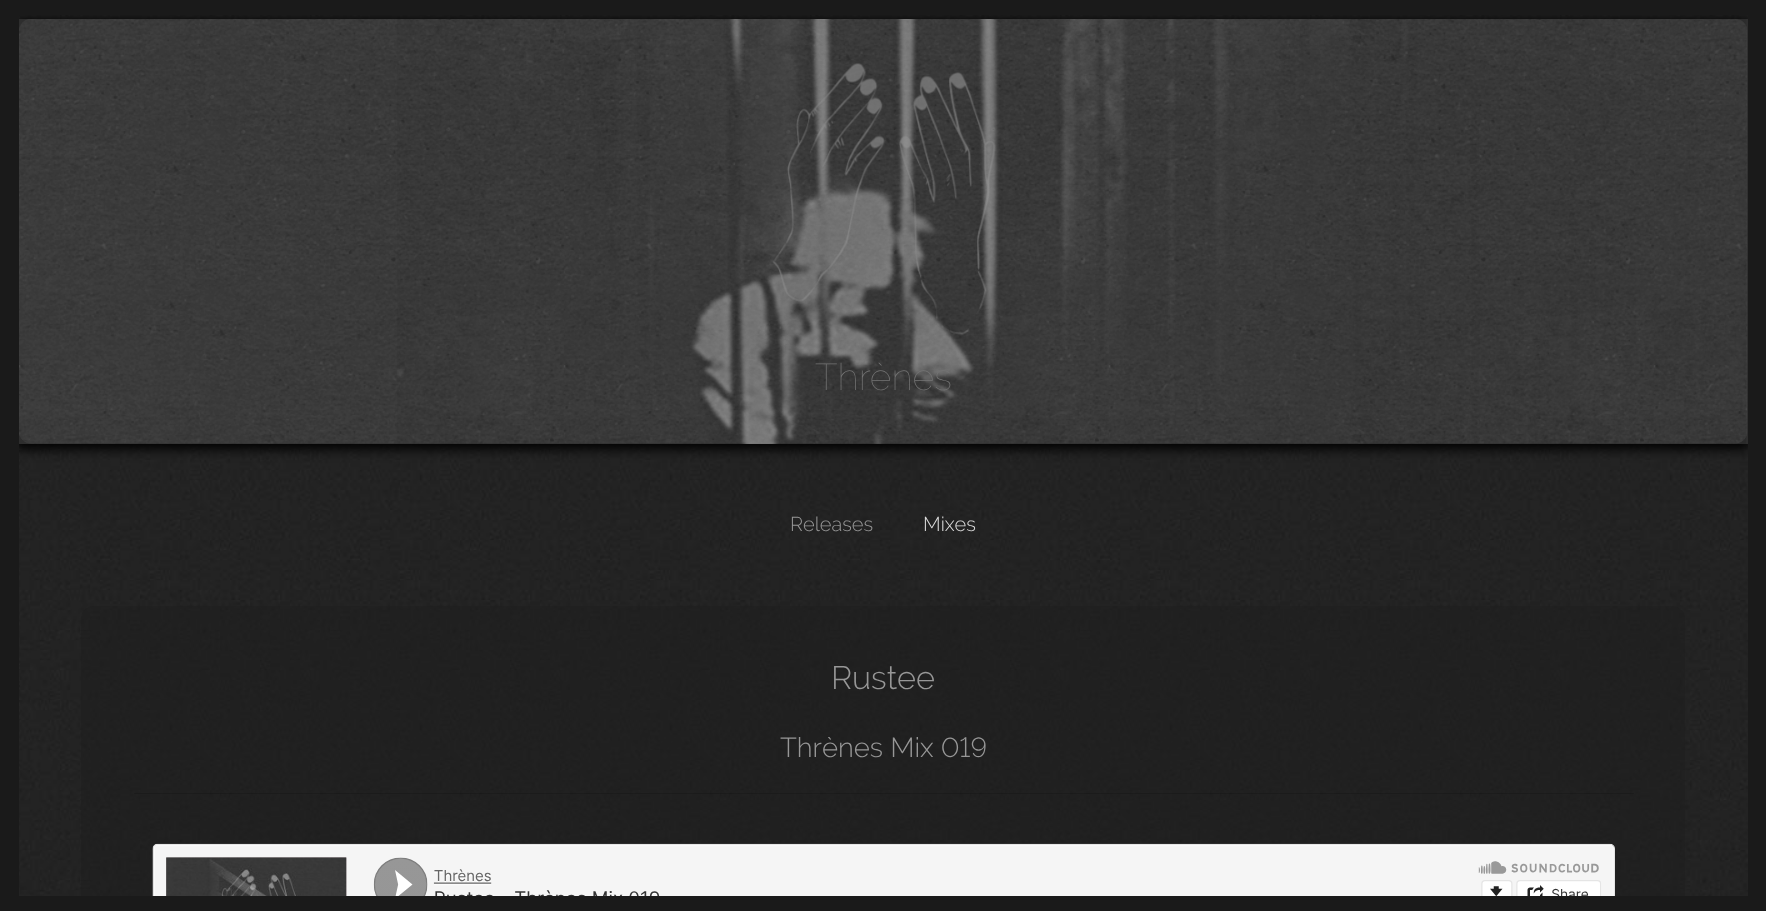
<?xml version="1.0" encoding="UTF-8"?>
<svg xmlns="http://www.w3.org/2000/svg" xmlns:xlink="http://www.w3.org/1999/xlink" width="1766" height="911">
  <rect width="100%" height="100%" fill="#ffffff" />
  <image x="19" y="15" width="1729" height="881" xlink:href="image1.png" />
  <rect x="16" y="19" width="1734" height="430" fill="#000000" filter="blur(6px)" />
  <rect width="1766" height="15" fill="#1a1a1a" />
  <rect y="15" width="19" height="881" fill="#1a1a1a" />
  <rect x="19" y="19" width="1729" height="425" fill="#2e2e2e" />
  <image x="397" y="19" width="1349" height="425" xlink:href="image3.png" />
  <image x="19" y="19" width="1729" height="425" xlink:href="image2.png" />
  <image x="772" y="63" width="224" height="272" xlink:href="image4.png" />
  <rect x="81" y="606" width="1604" height="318" rx="13" fill="#1d1d1d" fill-opacity="0.5" />
  <rect x="134" y="793" width="1500" height="1" fill="#000000" fill-opacity="0.15" />
  <image x="152" y="843" width="1463" height="53" xlink:href="image5.png" />
  <rect x="1748" y="15" width="18" height="881" fill="#1a1a1a" />
  <rect y="896" width="1766" height="15" fill="#1a1a1a" />
  <text x="815" y="390" style="font-family: Raleway; font-size: 37.5px; font-weight: 100; fill: #747474">Thrènes</text>
  <text x="790" y="531" style="font-family: Raleway; font-size: 20px; font-weight: 300; fill: #979797">Releases</text>
  <text x="923" y="531" style="font-family: Raleway; font-size: 20px; font-weight: 300; fill: #dddddd">Mixes</text>
  <text x="831" y="689" style="font-family: Raleway; font-size: 32.5px; font-weight: 300; fill: #979797">Rustee</text>
  <text x="780" y="757" style="font-family: Raleway; font-size: 27.5px; font-weight: 300; fill: #979797">Thrènes Mix 019</text>
</svg>
